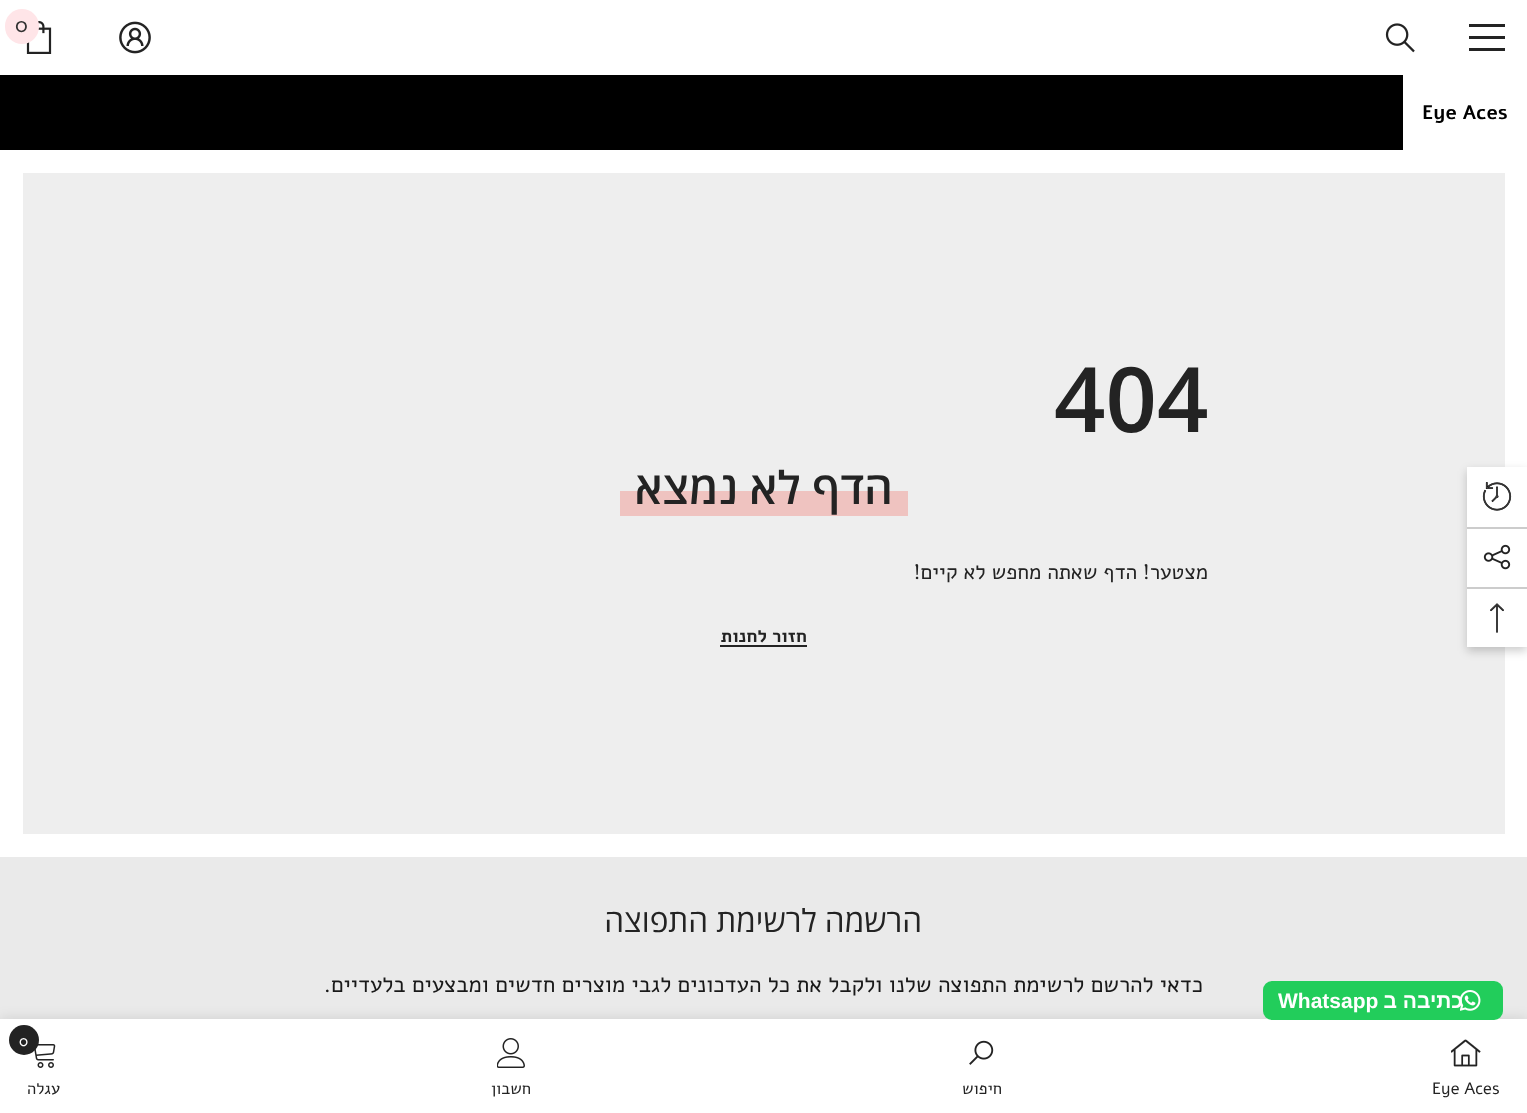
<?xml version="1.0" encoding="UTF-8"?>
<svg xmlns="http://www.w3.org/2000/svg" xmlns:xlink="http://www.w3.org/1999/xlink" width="1527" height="1113">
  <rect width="100%" height="100%" fill="#ffffff" />
  <rect x="1469" y="36" width="36" height="3" fill="#232323" />
  <rect x="1469" y="24" width="36" height="3" fill="#232323" />
  <rect x="1469" y="48" width="36" height="3" fill="#232323" />
  <image x="1385" y="23" width="30" height="30" xlink:href="image1.png" />
  <image x="119" y="21" width="32" height="33" xlink:href="image2.png" />
  <image x="26" y="21" width="26" height="33" xlink:href="image3.png" />
  <rect x="5" y="9" width="34" height="35" rx="17" fill="#ffe5e8" />
  <rect y="75" width="1403" height="75" fill="#000000" />
  <rect x="23" y="173" width="1482" height="661" fill="#eeeeee" />
  <rect x="620" y="491" width="288" height="25" fill="#efc3c0" />
  <rect x="720" y="645" width="87" height="2" fill="#232323" />
  <rect y="857" width="1527" height="162" fill="#eaeaea" />
  <rect y="1019" width="1527" height="94" fill="#000000" fill-opacity="0.12" filter="blur(7px)" />
  <rect y="1019" width="1527" height="94" fill="#ffffff" />
  <image x="1451" y="1039" width="30" height="28" xlink:href="image4.png" />
  <image x="969" y="1040" width="25" height="25" xlink:href="image5.png" />
  <image x="497" y="1038" width="28" height="30" xlink:href="image6.png" />
  <image x="34" y="1044" width="22" height="24" xlink:href="image7.png" />
  <circle cx="24" cy="1040" r="15" fill="#232323" />
  <rect x="1467" y="471" width="60" height="180" fill="#000000" fill-opacity="0.2" filter="blur(5px)" />
  <rect x="1467" y="467" width="60" height="180" fill="#ffffff" />
  <image x="1482" y="482" width="30" height="29" xlink:href="image8.png" />
  <rect x="1467" y="527" width="60" height="2" fill="#cccccc" />
  <image x="1483" y="544" width="28" height="26" xlink:href="image9.png" />
  <rect x="1467" y="587" width="60" height="2" fill="#cccccc" />
  <image x="1490" y="603" width="14" height="30" xlink:href="image10.png" />
  <rect x="1263" y="981" width="240" height="39" rx="9" fill="#22cd5b" />
  <text x="15" y="32" style="font-family: Alef; font-size: 21px; fill: #323232">0</text>
  <text x="1422" y="119" style="font-family: Alef; font-size: 19.5px; font-weight: bold; fill: #000000">Eye Aces</text>
  <text x="1054" y="432" style="font-family: Open Sans; font-size: 90px; font-weight: 600; fill: #232323">404</text>
  <text x="893" y="504" style="font-family: Open Sans; font-size: 45px; font-weight: 600; direction: rtl; fill: #232323">הדף לא נמצא</text>
  <text x="1208" y="579" style="font-family: Alef; font-size: 21px; direction: rtl; fill: #232323">מצטער! הדף שאתה מחפש לא קיים!</text>
  <text x="807" y="642" style="font-family: Alef; font-size: 18px; font-weight: bold; direction: rtl; fill: #232323">חזור לחנות</text>
  <text x="922" y="932" style="font-family: Open Sans; font-size: 31.5px; direction: rtl; fill: #232323">הרשמה לרשימת התפוצה</text>
  <text x="1203" y="992" style="font-family: Alef; font-size: 22.5px; direction: rtl; fill: #191919">כדאי להרשם לרשימת התפוצה שלנו ולקבל את כל העדכונים לגבי מוצרים חדשים ומבצעים בלעדיים.</text>
  <text x="1432" y="1094" style="font-family: Alef; font-size: 16.5px; fill: #232323">Eye Aces</text>
  <text x="1002" y="1094" style="font-family: Alef; font-size: 16.5px; direction: rtl; fill: #232323">חיפוש</text>
  <text x="531" y="1094" style="font-family: Alef; font-size: 16.5px; direction: rtl; fill: #232323">חשבון</text>
  <text x="19" y="1046" style="font-family: Alef; font-size: 15px; fill: #ffffff">0</text>
  <text x="60" y="1094" style="font-family: Alef; font-size: 16.5px; direction: rtl; fill: #232323">עגלה</text>
  <text x="1463" y="1008" style="font-family: Liberation Sans; font-size: 21px; font-weight: bold; direction: rtl; fill: #ffffff">כתיבה ב</text>
  <image x="1460" y="990" width="21" height="21" xlink:href="image11.png" />
  <text x="1278" y="1008" style="font-family: Liberation Sans; font-size: 21px; font-weight: bold; fill: #ffffff">Whatsapp</text>
</svg>
